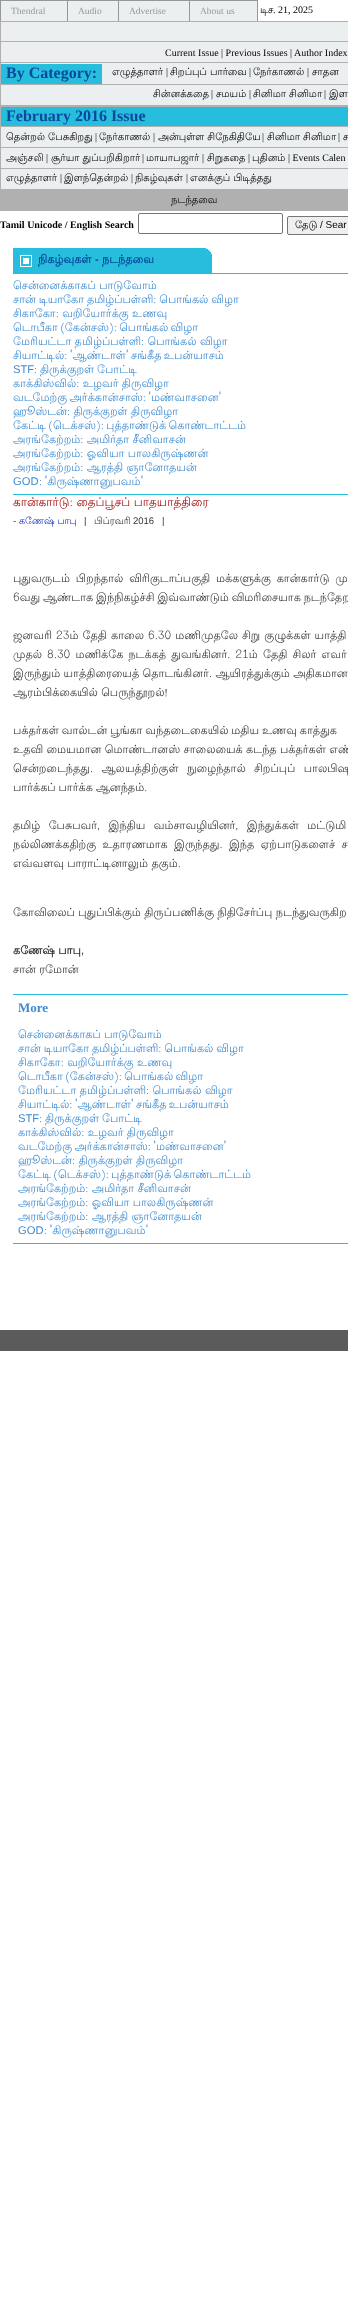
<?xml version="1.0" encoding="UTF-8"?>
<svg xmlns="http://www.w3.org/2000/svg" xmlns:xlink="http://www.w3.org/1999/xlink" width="348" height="2306">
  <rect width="100%" height="100%" fill="#ffffff" />
  <rect x="1" y="1" width="256" height="20" fill="#ebeff0" />
  <rect width="258" height="1" fill="#94979b" />
  <rect x="67" width="1" height="21" fill="#94979b" />
  <rect width="1" height="21" fill="#94979b" />
  <rect x="118" width="1" height="21" fill="#94979b" />
  <rect x="189" width="1" height="21" fill="#94979b" />
  <rect x="257" width="1" height="21" fill="#94979b" />
  <rect x="1" y="22" width="347" height="83" fill="#ebeff0" />
  <rect y="21" width="348" height="1" fill="#b0b0b0" />
  <rect y="105" width="348" height="2" fill="#b0b0b0" />
  <rect y="21" width="1" height="85" fill="#b0b0b0" />
  <rect x="1" y="41" width="347" height="1" fill="#b0b0b0" />
  <rect x="1" y="62" width="347" height="1" fill="#b0b0b0" />
  <rect x="1" y="64" width="101" height="20" fill="#27bedd" />
  <rect x="1" y="84" width="347" height="1" fill="#b0b0b0" />
  <rect x="1" y="127" width="347" height="62" fill="#ebeff0" />
  <rect y="189" width="348" height="2" fill="#b0b0b0" />
  <rect y="106" width="1" height="84" fill="#b0b0b0" />
  <rect x="1" y="107" width="347" height="19" fill="#27bedd" />
  <rect x="1" y="126" width="347" height="1" fill="#b0b0b0" />
  <rect x="1" y="147" width="347" height="1" fill="#b0b0b0" />
  <rect x="1" y="168" width="347" height="1" fill="#b0b0b0" />
  <rect y="210" width="348" height="1" fill="#b0b0b0" />
  <rect y="190" width="1" height="21" fill="#b0b0b0" />
  <rect x="1" y="191" width="347" height="19" fill="#b0b0b0" />
  <rect x="138.5" y="213.5" width="144" height="20" rx="1.5" fill="none" stroke="#767676" />
  <rect x="287.5" y="216.5" width="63" height="18" rx="1.5" fill="#efefef" stroke="#767676" />
  <image x="13" y="248" width="25" height="25" xlink:href="image1.png" />
  <rect x="38" y="248" width="166" height="25" fill="#27bedd" />
  <image x="204" y="248" width="8" height="25" xlink:href="image2.png" />
  <rect x="13" y="273" width="335" height="1" fill="#27bedd" />
  <rect x="13" y="494" width="335" height="1" fill="#27bedd" />
  <rect x="13" y="994" width="335" height="1" fill="#27bedd" />
  <rect x="13" y="1243" width="335" height="1" fill="#27bedd" />
  <rect y="1330" width="348" height="21" fill="#5b5b5b" />
  <text x="11" y="14" style="font-family: Liberation Serif; font-size: 9.5px; fill: #94979b">Thendral</text>
  <text x="78" y="14" style="font-family: Liberation Serif; font-size: 9.5px; fill: #94979b">Audio</text>
  <text x="129" y="14" style="font-family: Liberation Serif; font-size: 9.5px; fill: #94979b">Advertise</text>
  <text x="200" y="14" style="font-family: Liberation Serif; font-size: 9.5px; fill: #94979b">About us</text>
  <text x="260" y="13" style="font-family: Lohit Tamil; font-size: 10px; fill: #000000">டிச</text>
  <text x="273" y="13" style="font-family: Liberation Serif; font-size: 10px; fill: #000000">. 21, 2025</text>
  <text x="165" y="56" style="font-family: Liberation Serif; font-size: 10px; fill: #000000">Current Issue | Previous Issues | Author Index</text>
  <text x="6" y="78" style="font-family: Liberation Serif; font-size: 16px; font-weight: bold; fill: #08499d">By Category:</text>
  <text x="112" y="75" style="font-family: Lohit Tamil; font-size: 10px; fill: #000000">எழுத்தாளர்</text>
  <text x="166" y="75" style="font-family: Liberation Serif; font-size: 10px; fill: #000000">|</text>
  <text x="170" y="75" style="font-family: Lohit Tamil; font-size: 10px; fill: #000000">சிறப்புப் பார்வை</text>
  <text x="249" y="75" style="font-family: Liberation Serif; font-size: 10px; fill: #000000">|</text>
  <text x="253" y="75" style="font-family: Lohit Tamil; font-size: 10px; fill: #000000">நேர்காணல்</text>
  <text x="307" y="75" style="font-family: Liberation Serif; font-size: 10px; fill: #000000">|</text>
  <text x="312" y="75" style="font-family: Lohit Tamil; font-size: 10px; fill: #000000">சாதன</text>
  <text x="153" y="97" style="font-family: Lohit Tamil; font-size: 10px; fill: #000000">சின்னக்கதை</text>
  <text x="211" y="97" style="font-family: Liberation Serif; font-size: 10px; fill: #000000">|</text>
  <text x="216" y="97" style="font-family: Lohit Tamil; font-size: 10px; fill: #000000">சமயம்</text>
  <text x="249" y="97" style="font-family: Liberation Serif; font-size: 10px; fill: #000000">|</text>
  <text x="253" y="97" style="font-family: Lohit Tamil; font-size: 10px; fill: #000000">சினிமா சினிமா</text>
  <text x="324" y="97" style="font-family: Liberation Serif; font-size: 10px; fill: #000000">|</text>
  <text x="329" y="97" style="font-family: Lohit Tamil; font-size: 10px; fill: #000000">இள</text>
  <text x="6" y="121" style="font-family: Liberation Serif; font-size: 16px; font-weight: bold; fill: #08499d">February 2016 Issue</text>
  <text x="6" y="140" style="font-family: Lohit Tamil; font-size: 10px; fill: #000000">தென்றல் பேசுகிறது</text>
  <text x="95" y="140" style="font-family: Liberation Serif; font-size: 10px; fill: #000000">|</text>
  <text x="99" y="140" style="font-family: Lohit Tamil; font-size: 10px; fill: #000000">நேர்காணல்</text>
  <text x="153" y="140" style="font-family: Liberation Serif; font-size: 10px; fill: #000000">|</text>
  <text x="158" y="140" style="font-family: Lohit Tamil; font-size: 10px; fill: #000000">அன்புள்ள சிநேகிதியே</text>
  <text x="262" y="140" style="font-family: Liberation Serif; font-size: 10px; fill: #000000">|</text>
  <text x="267" y="140" style="font-family: Lohit Tamil; font-size: 10px; fill: #000000">சினிமா சினிமா</text>
  <text x="338" y="140" style="font-family: Liberation Serif; font-size: 10px; fill: #000000">|</text>
  <text x="343" y="140" style="font-family: Lohit Tamil; font-size: 10px; fill: #000000">ச</text>
  <text x="6" y="161" style="font-family: Lohit Tamil; font-size: 10px; fill: #000000">அஞ்சலி</text>
  <text x="46" y="161" style="font-family: Liberation Serif; font-size: 10px; fill: #000000">|</text>
  <text x="51" y="161" style="font-family: Lohit Tamil; font-size: 10px; fill: #000000">சூர்யா துப்பறிகிறார்</text>
  <text x="142" y="161" style="font-family: Liberation Serif; font-size: 10px; fill: #000000">|</text>
  <text x="146" y="161" style="font-family: Lohit Tamil; font-size: 10px; fill: #000000">மாயாபஜார்</text>
  <text x="202" y="161" style="font-family: Liberation Serif; font-size: 10px; fill: #000000">|</text>
  <text x="207" y="161" style="font-family: Lohit Tamil; font-size: 10px; fill: #000000">சிறுகதை</text>
  <text x="248" y="161" style="font-family: Liberation Serif; font-size: 10px; fill: #000000">|</text>
  <text x="252" y="161" style="font-family: Lohit Tamil; font-size: 10px; fill: #000000">புதினம்</text>
  <text x="288" y="161" style="font-family: Liberation Serif; font-size: 10px; fill: #000000">| Events Calen</text>
  <text x="6" y="181" style="font-family: Lohit Tamil; font-size: 10px; fill: #000000">எழுத்தாளர்</text>
  <text x="60" y="181" style="font-family: Liberation Serif; font-size: 10px; fill: #000000">|</text>
  <text x="64" y="181" style="font-family: Lohit Tamil; font-size: 10px; fill: #000000">இளந்தென்றல்</text>
  <text x="131" y="181" style="font-family: Liberation Serif; font-size: 10px; fill: #000000">|</text>
  <text x="135" y="181" style="font-family: Lohit Tamil; font-size: 10px; fill: #000000">நிகழ்வுகள்</text>
  <text x="186" y="181" style="font-family: Liberation Serif; font-size: 10px; fill: #000000">|</text>
  <text x="190" y="181" style="font-family: Lohit Tamil; font-size: 10px; fill: #000000">எனக்குப் பிடித்தது</text>
  <text x="171" y="203" style="font-family: Lohit Tamil; font-size: 10px; fill: #000000">நடந்தவை</text>
  <text x="0" y="228" style="font-family: Liberation Serif; font-size: 10px; font-weight: bold; fill: #000000">Tamil Unicode / English Search</text>
  <text x="295" y="228" style="font-family: Lohit Tamil; font-size: 10px; fill: #000000">தேடு</text>
  <text x="320" y="228" style="font-family: Liberation Sans; font-size: 10px; fill: #000000">/ Sear</text>
  <text x="38" y="263" style="font-family: Lohit Tamil; font-size: 11.2px; font-weight: bold; fill: #08499d">நிகழ்வுகள்</text>
  <text x="95" y="263" style="font-family: Liberation Sans; font-size: 11.2px; font-weight: bold; fill: #08499d">-</text>
  <text x="102" y="263" style="font-family: Lohit Tamil; font-size: 11.2px; font-weight: bold; fill: #08499d">நடந்தவை</text>
  <text x="13" y="289" style="font-family: Lohit Tamil; font-size: 11.2px; fill: #3c8ad0">சென்னைக்காகப் பாடுவோம்</text>
  <text x="13" y="303" word-spacing="-0.5" style="font-family: Lohit Tamil; font-size: 11.2px; fill: #3c8ad0">சான் டியாகோ தமிழ்ப்பள்ளி: பொங்கல் விழா</text>
  <text x="13" y="317" style="font-family: Lohit Tamil; font-size: 11.2px; fill: #3c8ad0">சிகாகோ: வறியோர்க்கு உணவு</text>
  <text x="13" y="331" word-spacing="-1" style="font-family: Lohit Tamil; font-size: 11.2px; fill: #3c8ad0">டொபீகா (கேன்சஸ்): பொங்கல் விழா</text>
  <text x="13" y="345" style="font-family: Lohit Tamil; font-size: 11.2px; fill: #3c8ad0">மேரியட்டா தமிழ்ப்பள்ளி: பொங்கல் விழா</text>
  <text x="13" y="359" word-spacing="-1" style="font-family: Lohit Tamil; font-size: 11.2px; fill: #3c8ad0">சியாட்டில்: 'ஆண்டாள்' சங்கீத உபன்யாசம்</text>
  <text x="13" y="373" style="font-family: Liberation Sans; font-size: 11.2px; fill: #3c8ad0">STF</text>
  <text x="34" y="373" word-spacing="-0.5" style="font-family: Lohit Tamil; font-size: 11.2px; fill: #3c8ad0">: திருக்குறள் போட்டி</text>
  <text x="13" y="387" style="font-family: Lohit Tamil; font-size: 11.2px; fill: #3c8ad0">காக்கிஸ்வில்: உழவர் திருவிழா</text>
  <text x="13" y="401" word-spacing="-1" style="font-family: Lohit Tamil; font-size: 11.2px; fill: #3c8ad0">வடமேற்கு அர்க்கான்சாஸ்: 'மண்வாசனை'</text>
  <text x="13" y="415" style="font-family: Lohit Tamil; font-size: 11.2px; fill: #3c8ad0">ஹூஸ்டன்: திருக்குறள் திருவிழா</text>
  <text x="13" y="429" word-spacing="-1" style="font-family: Lohit Tamil; font-size: 11.2px; fill: #3c8ad0">கேட்டி (டெக்சஸ்): புத்தாண்டுக் கொண்டாட்டம்</text>
  <text x="13" y="443" style="font-family: Lohit Tamil; font-size: 11.2px; fill: #3c8ad0">அரங்கேற்றம்: அமிர்தா சீனிவாசன்</text>
  <text x="13" y="457" style="font-family: Lohit Tamil; font-size: 11.2px; fill: #3c8ad0">அரங்கேற்றம்: ஓவியா பாலகிருஷ்ணன்</text>
  <text x="13" y="471" style="font-family: Lohit Tamil; font-size: 11.2px; fill: #3c8ad0">அரங்கேற்றம்: ஆரத்தி ஞானோதயன்</text>
  <text x="13" y="485" style="font-family: Liberation Sans; font-size: 11.2px; fill: #3c8ad0">GOD</text>
  <text x="39" y="485" word-spacing="-1" style="font-family: Lohit Tamil; font-size: 11.2px; fill: #3c8ad0">: 'கிருஷ்ணானுபவம்'</text>
  <text x="13" y="506" style="font-family: Lohit Tamil; font-size: 12px; fill: #9e0000">கான்கார்டு: தைப்பூசப் பாதயாத்திரை</text>
  <text x="13" y="524" style="font-family: Liberation Sans; font-size: 9.5px; fill: #132fbf">-</text>
  <text x="19" y="524" style="font-family: Lohit Tamil; font-size: 9.5px; fill: #132fbf">கணேஷ் பாபு</text>
  <text x="84" y="524" style="font-family: Liberation Sans; font-size: 9.5px; fill: #333333">|</text>
  <text x="94" y="524" style="font-family: Lohit Tamil; font-size: 9.5px; fill: #333333">பிப்ரவரி</text>
  <text x="133" y="524" style="font-family: Liberation Sans; font-size: 9.5px; fill: #333333">2016</text>
  <text x="162" y="524" style="font-family: Liberation Sans; font-size: 9.5px; fill: #333333">|</text>
  <text x="13" y="582" word-spacing="2.5" style="font-family: Lohit Tamil; font-size: 11.2px; fill: #333333">புதுவருடம் பிறந்தால் விரிகுடாப்பகுதி மக்களுக்கு கான்கார்டு மு</text>
  <text x="13" y="601" word-spacing="-0.5" style="font-family: Lohit Tamil; font-size: 11.2px; fill: #333333">6வது ஆண்டாக இந்நிகழ்ச்சி இவ்வாண்டும் விமரிசையாக நடந்தேற</text>
  <text x="13" y="639" word-spacing="0.75" style="font-family: Lohit Tamil; font-size: 11.2px; fill: #333333">ஜனவரி 23ம் தேதி காலை 6.30 மணிமுதலே சிறு குழுக்கள் யாத்தி</text>
  <text x="13" y="658" word-spacing="1.75" style="font-family: Lohit Tamil; font-size: 11.2px; fill: #333333">முதல் 8.30 மணிக்கே நடக்கத் துவங்கினர். 21ம் தேதி சிலர் எவர்</text>
  <text x="13" y="677" style="font-family: Lohit Tamil; font-size: 11.2px; fill: #333333">இருந்தும் யாத்திரையைத் தொடங்கினர். ஆயிரத்துக்கும் அதிகமான</text>
  <text x="13" y="696" style="font-family: Lohit Tamil; font-size: 11.2px; fill: #333333">ஆரம்பிக்கையில் பெருந்தூறல்!</text>
  <text x="13" y="734" word-spacing="-0.5" style="font-family: Lohit Tamil; font-size: 11.2px; fill: #333333">பக்தர்கள் வால்டன் பூங்கா வந்தடைகையில் மதிய உணவு காத்துக</text>
  <text x="13" y="753" style="font-family: Lohit Tamil; font-size: 11.2px; fill: #333333">உதவி மையமான மொண்டானஸ் சாலையைக் கடந்த பக்தர்கள் எண்</text>
  <text x="13" y="772" word-spacing="5" style="font-family: Lohit Tamil; font-size: 11.2px; fill: #333333">சென்றடைந்தது. ஆலயத்திற்குள் நுழைந்தால் சிறப்புப் பாலபிஷ</text>
  <text x="13" y="791" word-spacing="-0.5" style="font-family: Lohit Tamil; font-size: 11.2px; fill: #333333">பார்க்கப் பார்க்க ஆனந்தம்.</text>
  <text x="13" y="829" word-spacing="5" style="font-family: Lohit Tamil; font-size: 11.2px; fill: #333333">தமிழ் பேசுபவர், இந்திய வம்சாவழியினர், இந்துக்கள் மட்டுமி</text>
  <text x="13" y="848" word-spacing="3" style="font-family: Lohit Tamil; font-size: 11.2px; fill: #333333">நல்லிணக்கதிற்கு உதாரணமாக இருந்தது. இந்த ஏற்பாடுகளைச் ச</text>
  <text x="13" y="867" style="font-family: Lohit Tamil; font-size: 11.2px; fill: #333333">எவ்வளவு பாராட்டினாலும் தகும்.</text>
  <text x="13" y="916" style="font-family: Lohit Tamil; font-size: 11.2px; fill: #333333">கோவிலைப் புதுப்பிக்கும் திருப்பணிக்கு நிதிசேர்ப்பு நடந்துவருகிற</text>
  <text x="13" y="954" style="font-family: Lohit Tamil; font-size: 11.2px; font-weight: bold; fill: #333333">கணேஷ் பாபு</text>
  <text x="81" y="954" style="font-family: Liberation Sans; font-size: 11.2px; fill: #333333">,</text>
  <text x="13" y="973" style="font-family: Lohit Tamil; font-size: 11.2px; fill: #333333">சான் ரமோன்</text>
  <text x="18" y="1012" style="font-family: Liberation Serif; font-size: 13px; font-weight: bold; fill: #3c8ad0">More</text>
  <text x="18" y="1038" style="font-family: Lohit Tamil; font-size: 11.2px; fill: #3c8ad0">சென்னைக்காகப் பாடுவோம்</text>
  <text x="18" y="1052" word-spacing="-0.5" style="font-family: Lohit Tamil; font-size: 11.2px; fill: #3c8ad0">சான் டியாகோ தமிழ்ப்பள்ளி: பொங்கல் விழா</text>
  <text x="18" y="1066" style="font-family: Lohit Tamil; font-size: 11.2px; fill: #3c8ad0">சிகாகோ: வறியோர்க்கு உணவு</text>
  <text x="18" y="1080" word-spacing="-1" style="font-family: Lohit Tamil; font-size: 11.2px; fill: #3c8ad0">டொபீகா (கேன்சஸ்): பொங்கல் விழா</text>
  <text x="18" y="1094" style="font-family: Lohit Tamil; font-size: 11.2px; fill: #3c8ad0">மேரியட்டா தமிழ்ப்பள்ளி: பொங்கல் விழா</text>
  <text x="18" y="1108" word-spacing="-1" style="font-family: Lohit Tamil; font-size: 11.2px; fill: #3c8ad0">சியாட்டில்: 'ஆண்டாள்' சங்கீத உபன்யாசம்</text>
  <text x="18" y="1122" style="font-family: Liberation Sans; font-size: 11.2px; fill: #3c8ad0">STF</text>
  <text x="39" y="1122" word-spacing="-0.5" style="font-family: Lohit Tamil; font-size: 11.2px; fill: #3c8ad0">: திருக்குறள் போட்டி</text>
  <text x="18" y="1136" style="font-family: Lohit Tamil; font-size: 11.2px; fill: #3c8ad0">காக்கிஸ்வில்: உழவர் திருவிழா</text>
  <text x="18" y="1150" word-spacing="-1" style="font-family: Lohit Tamil; font-size: 11.2px; fill: #3c8ad0">வடமேற்கு அர்க்கான்சாஸ்: 'மண்வாசனை'</text>
  <text x="18" y="1164" style="font-family: Lohit Tamil; font-size: 11.2px; fill: #3c8ad0">ஹூஸ்டன்: திருக்குறள் திருவிழா</text>
  <text x="18" y="1178" word-spacing="-1" style="font-family: Lohit Tamil; font-size: 11.2px; fill: #3c8ad0">கேட்டி (டெக்சஸ்): புத்தாண்டுக் கொண்டாட்டம்</text>
  <text x="18" y="1192" style="font-family: Lohit Tamil; font-size: 11.2px; fill: #3c8ad0">அரங்கேற்றம்: அமிர்தா சீனிவாசன்</text>
  <text x="18" y="1206" style="font-family: Lohit Tamil; font-size: 11.2px; fill: #3c8ad0">அரங்கேற்றம்: ஓவியா பாலகிருஷ்ணன்</text>
  <text x="18" y="1220" style="font-family: Lohit Tamil; font-size: 11.2px; fill: #3c8ad0">அரங்கேற்றம்: ஆரத்தி ஞானோதயன்</text>
  <text x="18" y="1234" style="font-family: Liberation Sans; font-size: 11.2px; fill: #3c8ad0">GOD</text>
  <text x="44" y="1234" word-spacing="-1" style="font-family: Lohit Tamil; font-size: 11.2px; fill: #3c8ad0">: 'கிருஷ்ணானுபவம்'</text>
</svg>
